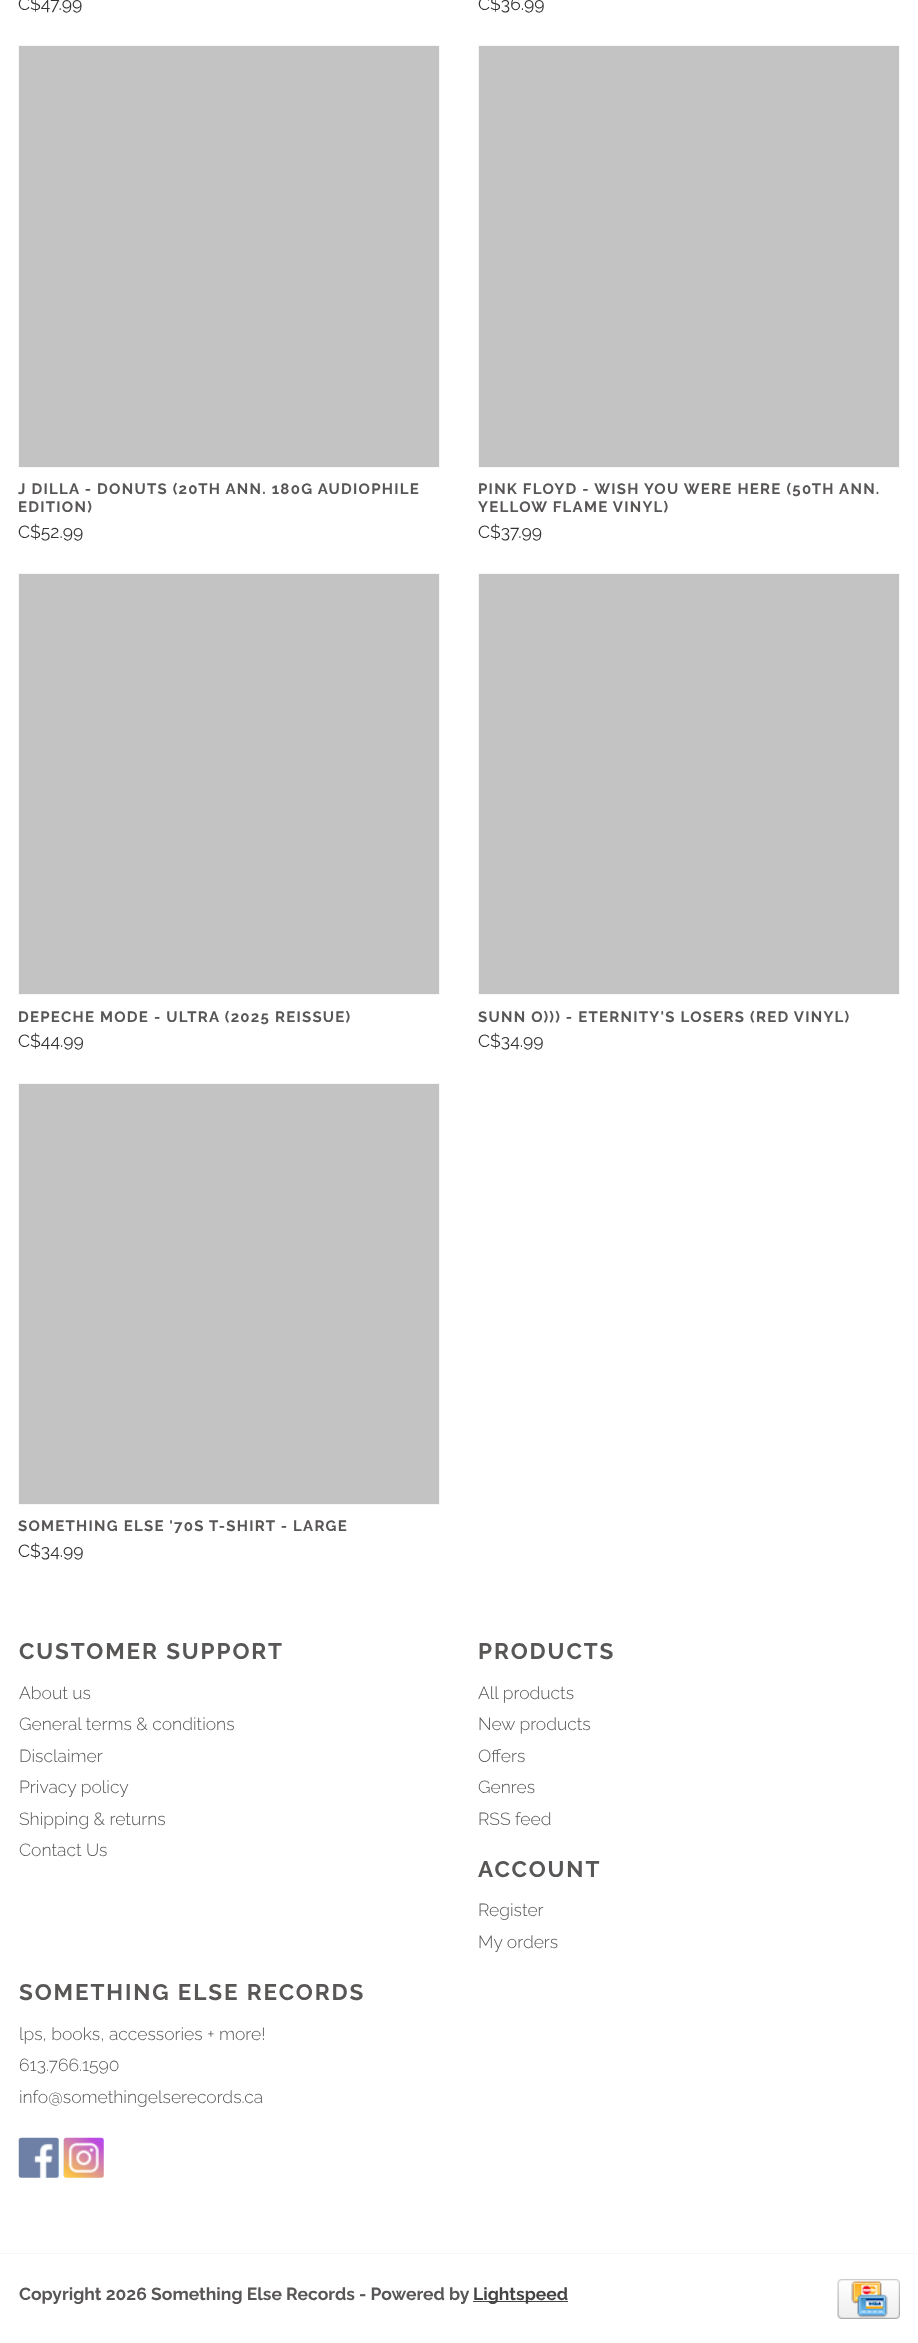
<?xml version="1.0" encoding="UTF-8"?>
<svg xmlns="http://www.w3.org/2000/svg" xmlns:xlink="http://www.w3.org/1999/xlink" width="918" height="2343">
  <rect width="100%" height="100%" fill="#ffffff" />
  <rect x="18.5" y="45.5" width="421" height="422" fill="none" stroke="#f7f7f7" />
  <rect x="19" y="46" width="420" height="421" fill="#c3c3c3" />
  <rect x="478.5" y="45.5" width="421" height="422" fill="none" stroke="#f7f7f7" />
  <rect x="479" y="46" width="420" height="421" fill="#c3c3c3" />
  <rect x="18.5" y="573.5" width="421" height="421" fill="none" stroke="#f7f7f7" />
  <rect x="19" y="574" width="420" height="420" fill="#c3c3c3" />
  <rect x="478.5" y="573.5" width="421" height="421" fill="none" stroke="#f7f7f7" />
  <rect x="479" y="574" width="420" height="420" fill="#c3c3c3" />
  <rect x="18.5" y="1083.5" width="421" height="421" fill="none" stroke="#f7f7f7" />
  <rect x="19" y="1084" width="420" height="420" fill="#c3c3c3" />
  <image x="18" y="2137" width="41" height="41" xlink:href="image1.png" />
  <image x="63" y="2137" width="41" height="41" xlink:href="image2.png" />
  <rect y="2253" width="918" height="1" fill="#f7f7f7" />
  <rect x="473" y="2301" width="95" height="1" fill="#444444" />
  <image x="837" y="2279" width="63" height="40" xlink:href="image3.png" />
  <text x="18" y="10" style="font-family: Raleway; font-size: 17.5px; fill: #333333">C$47.99</text>
  <text x="478" y="10" style="font-family: Raleway; font-size: 17.5px; fill: #333333">C$36.99</text>
  <text x="18" y="494" style="font-family: Raleway; font-size: 15px; font-weight: bold; letter-spacing: 1.25px; fill: #595656">J DILLA - DONUTS (20TH ANN. 180G AUDIOPHILE</text>
  <text x="18" y="512" style="font-family: Raleway; font-size: 15px; font-weight: bold; letter-spacing: 1.25px; fill: #595656">EDITION)</text>
  <text x="18" y="538" style="font-family: Raleway; font-size: 17.5px; fill: #333333">C$52.99</text>
  <text x="478" y="494" style="font-family: Raleway; font-size: 15px; font-weight: bold; letter-spacing: 1.25px; fill: #595656">PINK FLOYD - WISH YOU WERE HERE (50TH ANN.</text>
  <text x="478" y="512" style="font-family: Raleway; font-size: 15px; font-weight: bold; letter-spacing: 1.25px; fill: #595656">YELLOW FLAME VINYL)</text>
  <text x="478" y="538" style="font-family: Raleway; font-size: 17.5px; fill: #333333">C$37.99</text>
  <text x="18" y="1022" style="font-family: Raleway; font-size: 15px; font-weight: bold; letter-spacing: 1.25px; fill: #595656">DEPECHE MODE - ULTRA (2025 REISSUE)</text>
  <text x="18" y="1047" style="font-family: Raleway; font-size: 17.5px; fill: #333333">C$44.99</text>
  <text x="478" y="1022" style="font-family: Raleway; font-size: 15px; font-weight: bold; letter-spacing: 1.25px; fill: #595656">SUNN O))) - ETERNITY'S LOSERS (RED VINYL)</text>
  <text x="478" y="1047" style="font-family: Raleway; font-size: 17.5px; fill: #333333">C$34.99</text>
  <text x="18" y="1531" style="font-family: Raleway; font-size: 15px; font-weight: bold; letter-spacing: 1.25px; fill: #595656">SOMETHING ELSE '70S T-SHIRT - LARGE</text>
  <text x="18" y="1557" style="font-family: Raleway; font-size: 17.5px; fill: #333333">C$34.99</text>
  <text x="19" y="1659" style="font-family: Raleway; font-size: 22.5px; font-weight: bold; letter-spacing: 1.9px; fill: #595656">CUSTOMER SUPPORT</text>
  <text x="19" y="1699" style="font-family: Raleway; font-size: 17.5px; font-weight: 300; fill: #595656">About us</text>
  <text x="19" y="1730" style="font-family: Raleway; font-size: 17.5px; font-weight: 300; fill: #595656">General terms &amp; conditions</text>
  <text x="19" y="1762" style="font-family: Raleway; font-size: 17.5px; font-weight: 300; fill: #595656">Disclaimer</text>
  <text x="19" y="1793" style="font-family: Raleway; font-size: 17.5px; font-weight: 300; fill: #595656">Privacy policy</text>
  <text x="19" y="1825" style="font-family: Raleway; font-size: 17.5px; font-weight: 300; fill: #595656">Shipping &amp; returns</text>
  <text x="19" y="1856" style="font-family: Raleway; font-size: 17.5px; font-weight: 300; fill: #595656">Contact Us</text>
  <text x="478" y="1659" style="font-family: Raleway; font-size: 22.5px; font-weight: bold; letter-spacing: 1.9px; fill: #595656">PRODUCTS</text>
  <text x="478" y="1699" style="font-family: Raleway; font-size: 17.5px; font-weight: 300; fill: #595656">All products</text>
  <text x="478" y="1730" style="font-family: Raleway; font-size: 17.5px; font-weight: 300; fill: #595656">New products</text>
  <text x="478" y="1762" style="font-family: Raleway; font-size: 17.5px; font-weight: 300; fill: #595656">Offers</text>
  <text x="478" y="1793" style="font-family: Raleway; font-size: 17.5px; font-weight: 300; fill: #595656">Genres</text>
  <text x="478" y="1825" style="font-family: Raleway; font-size: 17.5px; font-weight: 300; fill: #595656">RSS feed</text>
  <text x="478" y="1877" style="font-family: Raleway; font-size: 22.5px; font-weight: bold; letter-spacing: 1.9px; fill: #595656">ACCOUNT</text>
  <text x="478" y="1916" style="font-family: Raleway; font-size: 17.5px; font-weight: 300; fill: #595656">Register</text>
  <text x="478" y="1948" style="font-family: Raleway; font-size: 17.5px; font-weight: 300; fill: #595656">My orders</text>
  <text x="19" y="2000" style="font-family: Raleway; font-size: 22.5px; font-weight: bold; letter-spacing: 1.9px; fill: #595656">SOMETHING ELSE RECORDS</text>
  <text x="19" y="2040" style="font-family: Raleway; font-size: 17.5px; font-weight: 300; fill: #595656">lps, books, accessories + more!</text>
  <text x="19" y="2071" style="font-family: Raleway; font-size: 17.5px; font-weight: 300; fill: #595656">613.766.1590</text>
  <text x="19" y="2103" style="font-family: Raleway; font-size: 17.5px; font-weight: 300; fill: #595656">info@somethingelserecords.ca</text>
  <text x="19" y="2300" style="font-family: Raleway; font-size: 17.5px; font-weight: bold; fill: #595656">Copyright 2026 Something Else Records - Powered by</text>
  <text x="473" y="2300" style="font-family: Raleway; font-size: 17.5px; font-weight: bold; fill: #444444">Lightspeed</text>
</svg>
